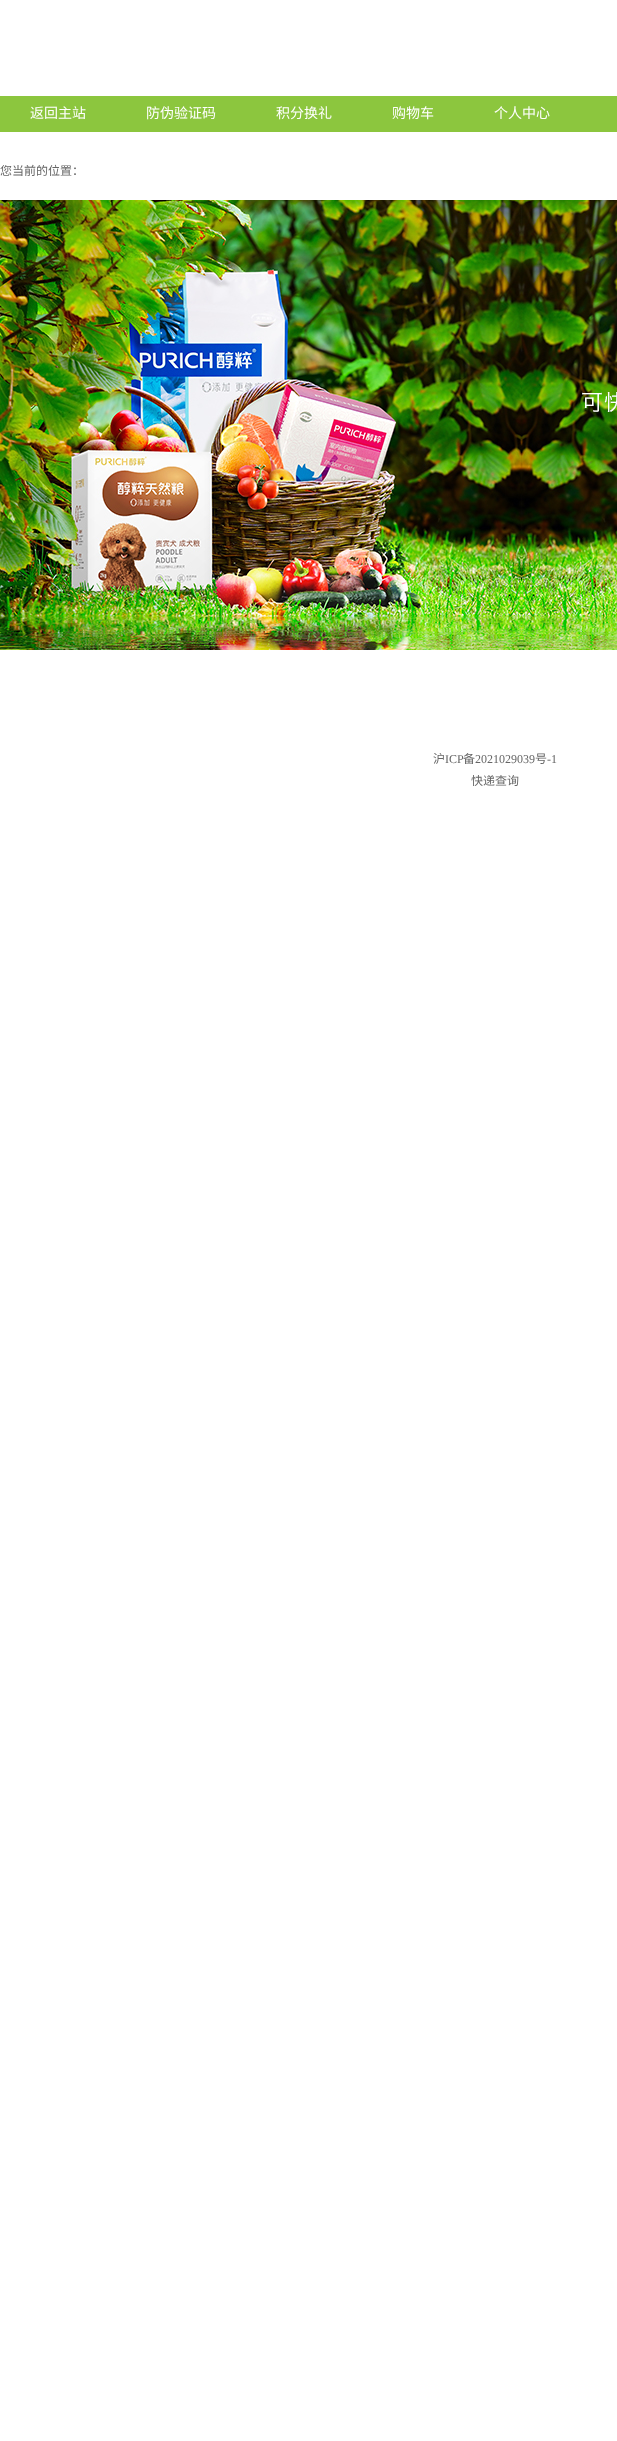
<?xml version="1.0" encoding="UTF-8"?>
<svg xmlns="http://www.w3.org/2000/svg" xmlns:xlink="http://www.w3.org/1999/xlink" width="617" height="2441">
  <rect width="100%" height="100%" fill="#ffffff" />
  <rect y="96" width="617" height="36" fill="#8cc63e" />
  <image x="0" y="200" width="617" height="450" xlink:href="image1.png" />
  <text x="30" y="118" style="font-family: Noto Sans CJK SC; font-size: 14px; fill: #ffffff">返回主站</text>
  <text x="146" y="118" style="font-family: Noto Sans CJK SC; font-size: 14px; fill: #ffffff">防伪验证码</text>
  <text x="276" y="118" style="font-family: Noto Sans CJK SC; font-size: 14px; fill: #ffffff">积分换礼</text>
  <text x="392" y="118" style="font-family: Noto Sans CJK SC; font-size: 14px; fill: #ffffff">购物车</text>
  <text x="494" y="118" style="font-family: Noto Sans CJK SC; font-size: 14px; fill: #ffffff">个人中心</text>
  <text x="0" y="175" style="font-family: Noto Sans CJK SC; font-size: 12px; fill: #666666">您当前的位置：</text>
  <text x="433" y="763" style="font-family: Noto Sans CJK SC; font-size: 12px; fill: #666666">沪</text>
  <text x="445" y="763" style="font-family: Liberation Serif; font-size: 12px; fill: #666666">ICP</text>
  <text x="463" y="763" style="font-family: Noto Sans CJK SC; font-size: 12px; fill: #666666">备</text>
  <text x="475" y="763" style="font-family: Liberation Serif; font-size: 12px; fill: #666666">2021029039</text>
  <text x="535" y="763" style="font-family: Noto Sans CJK SC; font-size: 12px; fill: #666666">号</text>
  <text x="547" y="763" style="font-family: Liberation Serif; font-size: 12px; fill: #666666">-1</text>
  <text x="471" y="785" style="font-family: Noto Sans CJK SC; font-size: 12px; fill: #666666">快递查询</text>
</svg>
